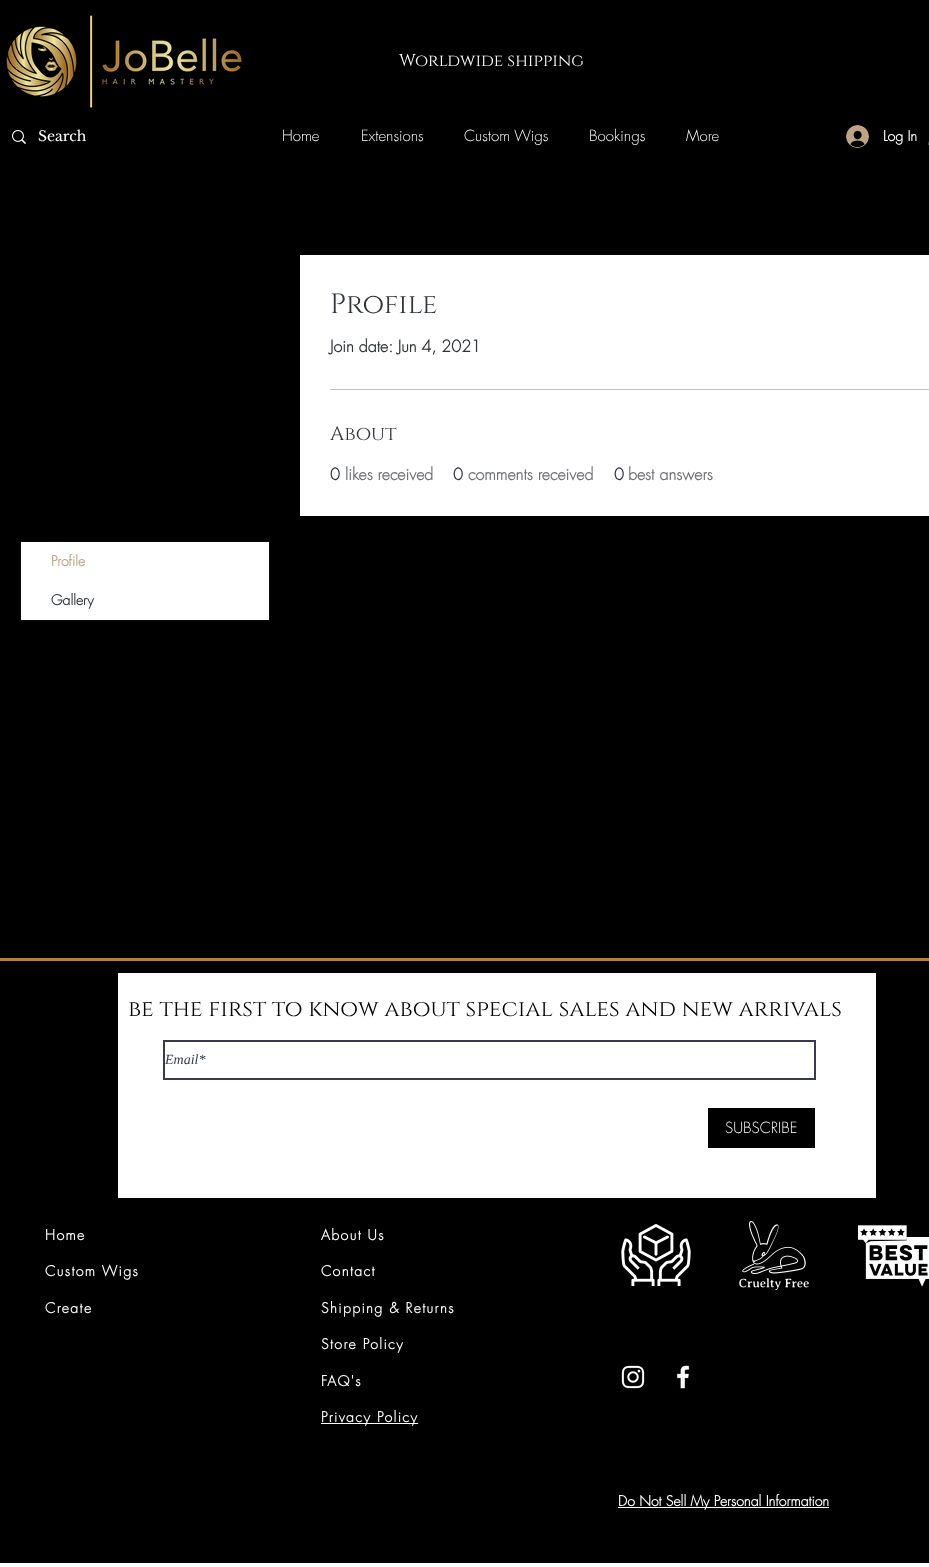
<?xml version="1.0" encoding="UTF-8"?>
<svg xmlns="http://www.w3.org/2000/svg" xmlns:xlink="http://www.w3.org/1999/xlink" width="929" height="1567">
  <rect width="100%" height="100%" fill="#000000" />
  <image x="6" y="15" width="236" height="93" xlink:href="image1.png" />
  <image x="12" y="130" width="14" height="14" xlink:href="image2.png" />
  <image x="846" y="125" width="23" height="23" xlink:href="image3.png" />
  <image x="928" y="141" width="1" height="4" xlink:href="image4.png" />
  <rect x="300" y="255" width="629" height="261" fill="#ffffff" />
  <rect x="330" y="389" width="599" height="1" fill="#c1c2c5" />
  <rect x="20.5" y="541.5" width="249" height="79" fill="none" stroke="#0a0b0c" />
  <rect x="21" y="542" width="248" height="78" fill="#ffffff" />
  <rect y="958" width="929" height="3" fill="#ad812f" />
  <rect x="118" y="973" width="758" height="225" fill="#ffffff" />
  <rect x="164" y="1041" width="651" height="38" fill="none" stroke="#373b4d" stroke-width="2" />
  <rect x="708" y="1108" width="107" height="40" fill="#000000" />
  <rect x="321" y="1423" width="97" height="1" fill="#ffffff" />
  <image x="621" y="1224" width="70" height="62" xlink:href="image5.png" />
  <image x="739" y="1221" width="70" height="69" xlink:href="image6.png" />
  <image x="858" y="1225" width="71" height="62" xlink:href="image7.png" />
  <image x="621" y="1365" width="24" height="24" xlink:href="image8.png" />
  <image x="677" y="1365" width="13" height="24" xlink:href="image9.png" />
  <rect x="618" y="1507" width="211" height="1" fill="#ffffff" />
  <rect y="1563" width="929" height="4" fill="#ffffff" />
  <text x="399" y="66" style="font-family: Cinzel; font-size: 17px; fill: #ffffff">Worldwide shipping</text>
  <text x="38" y="141" style="font-family: Libre Baskerville; font-size: 14px; fill: #ffffff">Search</text>
  <text x="282" y="141" style="font-family: futura; font-size: 15px; font-weight: 300; fill: #ffffff">Home</text>
  <text x="361" y="141" style="font-family: futura; font-size: 15px; font-weight: 300; fill: #ffffff">Extensions</text>
  <text x="464" y="141" style="font-family: futura; font-size: 15px; font-weight: 300; fill: #ffffff">Custom Wigs</text>
  <text x="589" y="141" style="font-family: futura; font-size: 15px; font-weight: 300; fill: #ffffff">Bookings</text>
  <text x="686" y="141" style="font-family: futura; font-size: 15px; font-weight: 300; fill: #ffffff">More</text>
  <text x="883" y="141" style="font-family: futura; font-size: 14px; font-weight: bold; fill: #ffffff">Log In</text>
  <text x="330" y="313" style="font-family: Cinzel; font-size: 28px; fill: #31353d">Profile</text>
  <text x="330" y="352" style="font-family: futura; font-size: 16px; font-weight: bold; fill: #31353d">Join date: Jun 4, 2021</text>
  <text x="330" y="440" style="font-family: Cinzel; font-size: 20px; fill: #31353d">About</text>
  <text x="330" y="480" style="font-family: futura; font-size: 16px; font-weight: bold; fill: #31353d">0</text>
  <text x="345" y="480" style="font-family: futura; font-size: 16px; font-weight: bold; fill: #6f7277">likes received</text>
  <text x="453" y="480" style="font-family: futura; font-size: 16px; font-weight: bold; fill: #31353d">0</text>
  <text x="468" y="480" style="font-family: futura; font-size: 16px; font-weight: bold; fill: #6f7277">comments received</text>
  <text x="614" y="480" style="font-family: futura; font-size: 16px; font-weight: bold; fill: #31353d">0</text>
  <text x="628" y="480" style="font-family: futura; font-size: 16px; font-weight: bold; fill: #6f7277">best answers</text>
  <text x="51" y="566" style="font-family: futura; font-size: 14px; font-weight: bold; fill: #bfa484">Profile</text>
  <text x="51" y="605" style="font-family: futura; font-size: 14px; font-weight: bold; fill: #31353d">Gallery</text>
  <text x="128" y="1016" style="font-family: Cinzel; font-size: 23px; fill: #000000">be the first to know about special sales and new arrivals</text>
  <text x="165" y="1064" style="font-family: Liberation Serif; font-size: 14px; font-style: italic; fill: #373b4d">Email*</text>
  <text x="725" y="1133" style="font-family: futura; font-size: 15px; font-weight: 300; fill: #ffffff">SUBSCRIBE</text>
  <text x="45" y="1240" style="font-family: futura; font-size: 14px; font-weight: bold; letter-spacing: 1.4px; fill: #ffffff">Home</text>
  <text x="45" y="1276" style="font-family: futura; font-size: 14px; font-weight: bold; letter-spacing: 1.4px; fill: #ffffff">Custom Wigs</text>
  <text x="45" y="1313" style="font-family: futura; font-size: 14px; font-weight: bold; letter-spacing: 1.4px; fill: #ffffff">Create</text>
  <text x="321" y="1240" style="font-family: futura; font-size: 14px; font-weight: bold; letter-spacing: 1.4px; fill: #ffffff">About Us</text>
  <text x="321" y="1276" style="font-family: futura; font-size: 14px; font-weight: bold; letter-spacing: 1.4px; fill: #ffffff">Contact</text>
  <text x="321" y="1313" style="font-family: futura; font-size: 14px; font-weight: bold; letter-spacing: 1.4px; fill: #ffffff">Shipping &amp; Returns</text>
  <text x="321" y="1349" style="font-family: futura; font-size: 14px; font-weight: bold; letter-spacing: 1.4px; fill: #ffffff">Store Policy</text>
  <text x="321" y="1386" style="font-family: futura; font-size: 14px; font-weight: bold; letter-spacing: 1.4px; fill: #ffffff">FAQ's</text>
  <text x="321" y="1422" style="font-family: futura; font-size: 14px; font-weight: bold; letter-spacing: 1.4px; fill: #ffffff">Privacy Policy</text>
  <text x="618" y="1506" style="font-family: futura; font-size: 14px; font-weight: bold; fill: #ffffff">Do Not Sell My Personal Information</text>
</svg>
